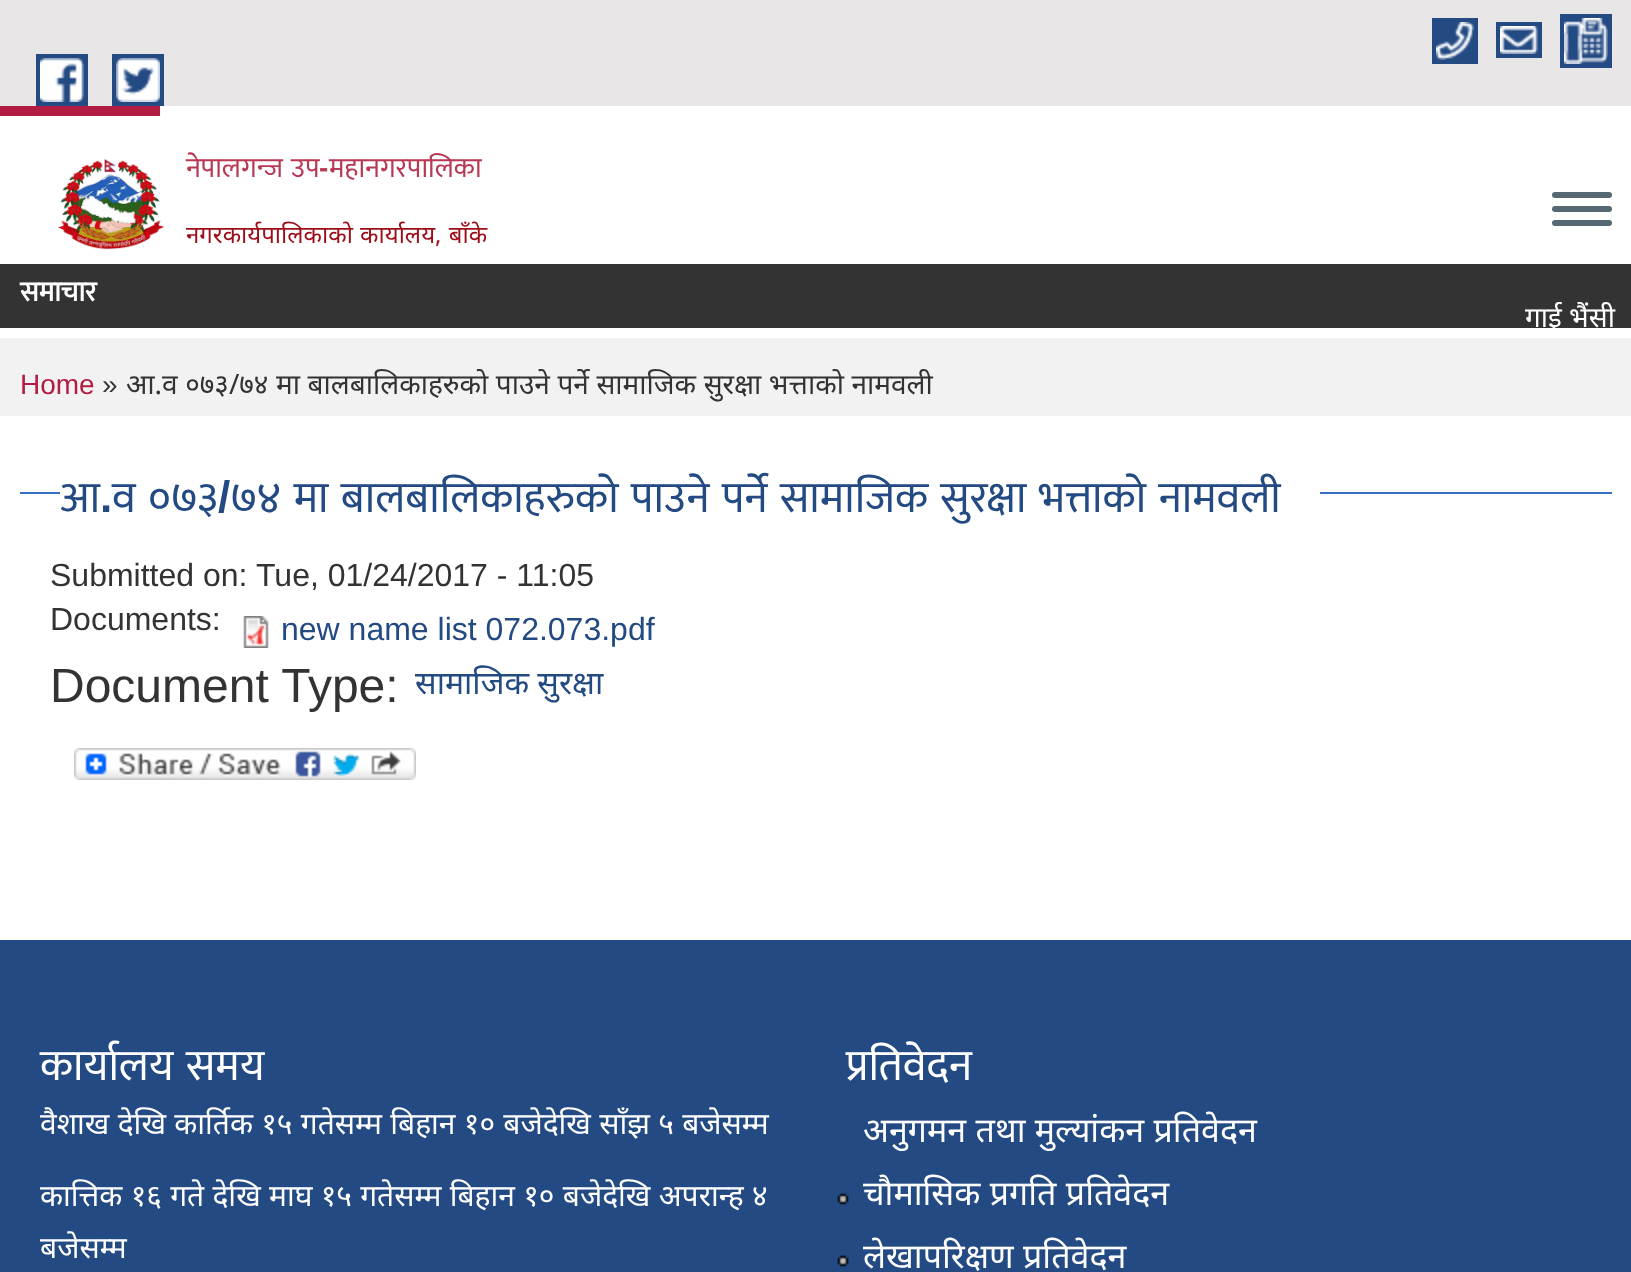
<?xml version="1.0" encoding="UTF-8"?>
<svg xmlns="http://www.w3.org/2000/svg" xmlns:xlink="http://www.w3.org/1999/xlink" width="1631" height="1272">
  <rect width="100%" height="100%" fill="#ffffff" />
  <rect width="1631" height="106" fill="#e8e6e6" />
  <rect x="1432" y="18" width="46" height="46" fill="#234a83" />
  <rect x="1560" y="14" width="52" height="54" fill="#234a83" />
  <image x="1436" y="22" width="38" height="38" xlink:href="image1.png" />
  <rect x="1496" y="22" width="46" height="36" fill="#234a83" />
  <image x="1564" y="18" width="44" height="46" xlink:href="image2.png" />
  <image x="1500" y="26" width="38" height="28" xlink:href="image3.png" />
  <rect x="36" y="54" width="52" height="52" fill="#234a83" />
  <rect x="112" y="54" width="52" height="52" fill="#234a83" />
  <image x="40" y="58" width="44" height="44" xlink:href="image4.png" />
  <image x="116" y="58" width="44" height="44" xlink:href="image5.png" />
  <rect y="106" width="160" height="10" fill="#b21c42" />
  <image x="58" y="159" width="107" height="91" xlink:href="image6.png" />
  <rect x="1552" y="192" width="60" height="6" rx="3" fill="#566973" />
  <rect x="1552" y="206" width="60" height="6" rx="3" fill="#566973" />
  <rect x="1552" y="220" width="60" height="6" rx="3" fill="#566973" />
  <rect y="264" width="1631" height="64" fill="#333333" />
  <rect y="338" width="1631" height="78" fill="#f2f2f2" />
  <rect x="20" y="492" width="1592" height="2" fill="#376fc2" />
  <rect x="60" y="492" width="1260" height="2" fill="#ffffff" />
  <image x="243" y="616" width="26" height="32" xlink:href="image7.png" />
  <image x="74" y="748" width="342" height="32" xlink:href="image8.png" />
  <rect y="940" width="1631" height="332" fill="#234a83" />
  <image x="837" y="1193" width="12" height="12" xlink:href="image9.png" />
  <image x="837" y="1255" width="12" height="12" xlink:href="image9.png" />
  <text x="186" y="177" word-spacing="2" style="font-family: Mukta; font-size: 28px; fill: #b83955">नेपालगन्ज उप</text>
  <text x="319" y="177" style="font-family: Liberation Sans; font-size: 28px; font-weight: bold; fill: #b83955">-</text>
  <text x="329" y="177" style="font-family: Mukta; font-size: 28px; fill: #b83955">महानगरपालिका</text>
  <text x="186" y="243" word-spacing="1" style="font-family: Noto Sans; font-size: 24px; fill: #9e0c18">नगरकार्यपालिकाको कार्यालय, बाँके</text>
  <text x="20" y="301" style="font-family: Mukta; font-size: 28px; font-weight: bold; fill: #ffffff">समाचार</text>
  <text x="1525" y="327" style="font-family: Noto Sans; font-size: 28px; fill: #ffffff">गाई भैंसी</text>
  <text x="20" y="394" style="font-family: Liberation Sans; font-size: 28px; fill: #b21c42">Home</text>
  <text x="102" y="394" style="font-family: Liberation Sans; font-size: 28px; fill: #333333">»</text>
  <text x="126" y="394" word-spacing="0.25" style="font-family: Noto Sans; font-size: 28px; fill: #333333">आ.व ०७३/७४ मा बालबालिकाहरुको पाउने पर्ने सामाजिक सुरक्षा भत्ताको नामवली</text>
  <text x="60" y="512" style="font-family: Mukta; font-size: 44px; fill: #234a83">आ</text>
  <text x="100" y="512" style="font-family: Liberation Sans; font-size: 44px; font-weight: bold; fill: #234a83">.</text>
  <text x="112" y="512" word-spacing="2.5" style="font-family: Mukta; font-size: 44px; fill: #234a83">व ०७३</text>
  <text x="218" y="512" style="font-family: Liberation Sans; font-size: 44px; font-weight: bold; fill: #234a83">/</text>
  <text x="230" y="512" word-spacing="2.5" style="font-family: Mukta; font-size: 44px; fill: #234a83">७४ मा बालबालिकाहरुको पाउने पर्ने सामाजिक सुरक्षा भत्ताको नामवली</text>
  <text x="50" y="586" style="font-family: Liberation Sans; font-size: 32px; fill: #333333">Submitted on:</text>
  <text x="256" y="586" style="font-family: Liberation Sans; font-size: 32px; fill: #333333">Tue, 01/24/2017 - 11:05</text>
  <text x="50" y="630" style="font-family: Liberation Sans; font-size: 32px; fill: #333333">Documents:</text>
  <text x="281" y="640" style="font-family: Liberation Sans; font-size: 32px; fill: #234a83">new name list 072.073.pdf</text>
  <text x="50" y="702" style="font-family: Liberation Sans; font-size: 48px; fill: #333333">Document Type:</text>
  <text x="415" y="694" style="font-family: Noto Sans; font-size: 32px; fill: #234a83">सामाजिक सुरक्षा</text>
  <text x="40" y="1080" word-spacing="2.5" style="font-family: Mukta; font-size: 44px; fill: #ffffff">कार्यालय समय</text>
  <text x="40" y="1134" word-spacing="0.5" style="font-family: Noto Sans; font-size: 30px; fill: #ffffff">वैशाख देखि कार्तिक १५ गतेसम्म बिहान १० बजेदेखि साँझ ५ बजेसम्म</text>
  <text x="40" y="1206" word-spacing="0.5" style="font-family: Noto Sans; font-size: 30px; fill: #ffffff">कात्तिक १६ गते देखि माघ १५ गतेसम्म बिहान १० बजेदेखि अपरान्ह ४</text>
  <text x="40" y="1258" style="font-family: Noto Sans; font-size: 30px; fill: #ffffff">बजेसम्म</text>
  <text x="846" y="1080" style="font-family: Mukta; font-size: 44px; fill: #ffffff">प्रतिवेदन</text>
  <text x="863" y="1142" word-spacing="0.5" style="font-family: Noto Sans; font-size: 34px; fill: #ffffff">अनुगमन तथा मुल्यांकन प्रतिवेदन</text>
  <text x="863" y="1205" word-spacing="0.5" style="font-family: Noto Sans; font-size: 34px; fill: #ffffff">चौमासिक प्रगति प्रतिवेदन</text>
  <text x="863" y="1268" word-spacing="0.5" style="font-family: Noto Sans; font-size: 34px; fill: #ffffff">लेखापरिक्षण प्रतिवेदन</text>
</svg>
